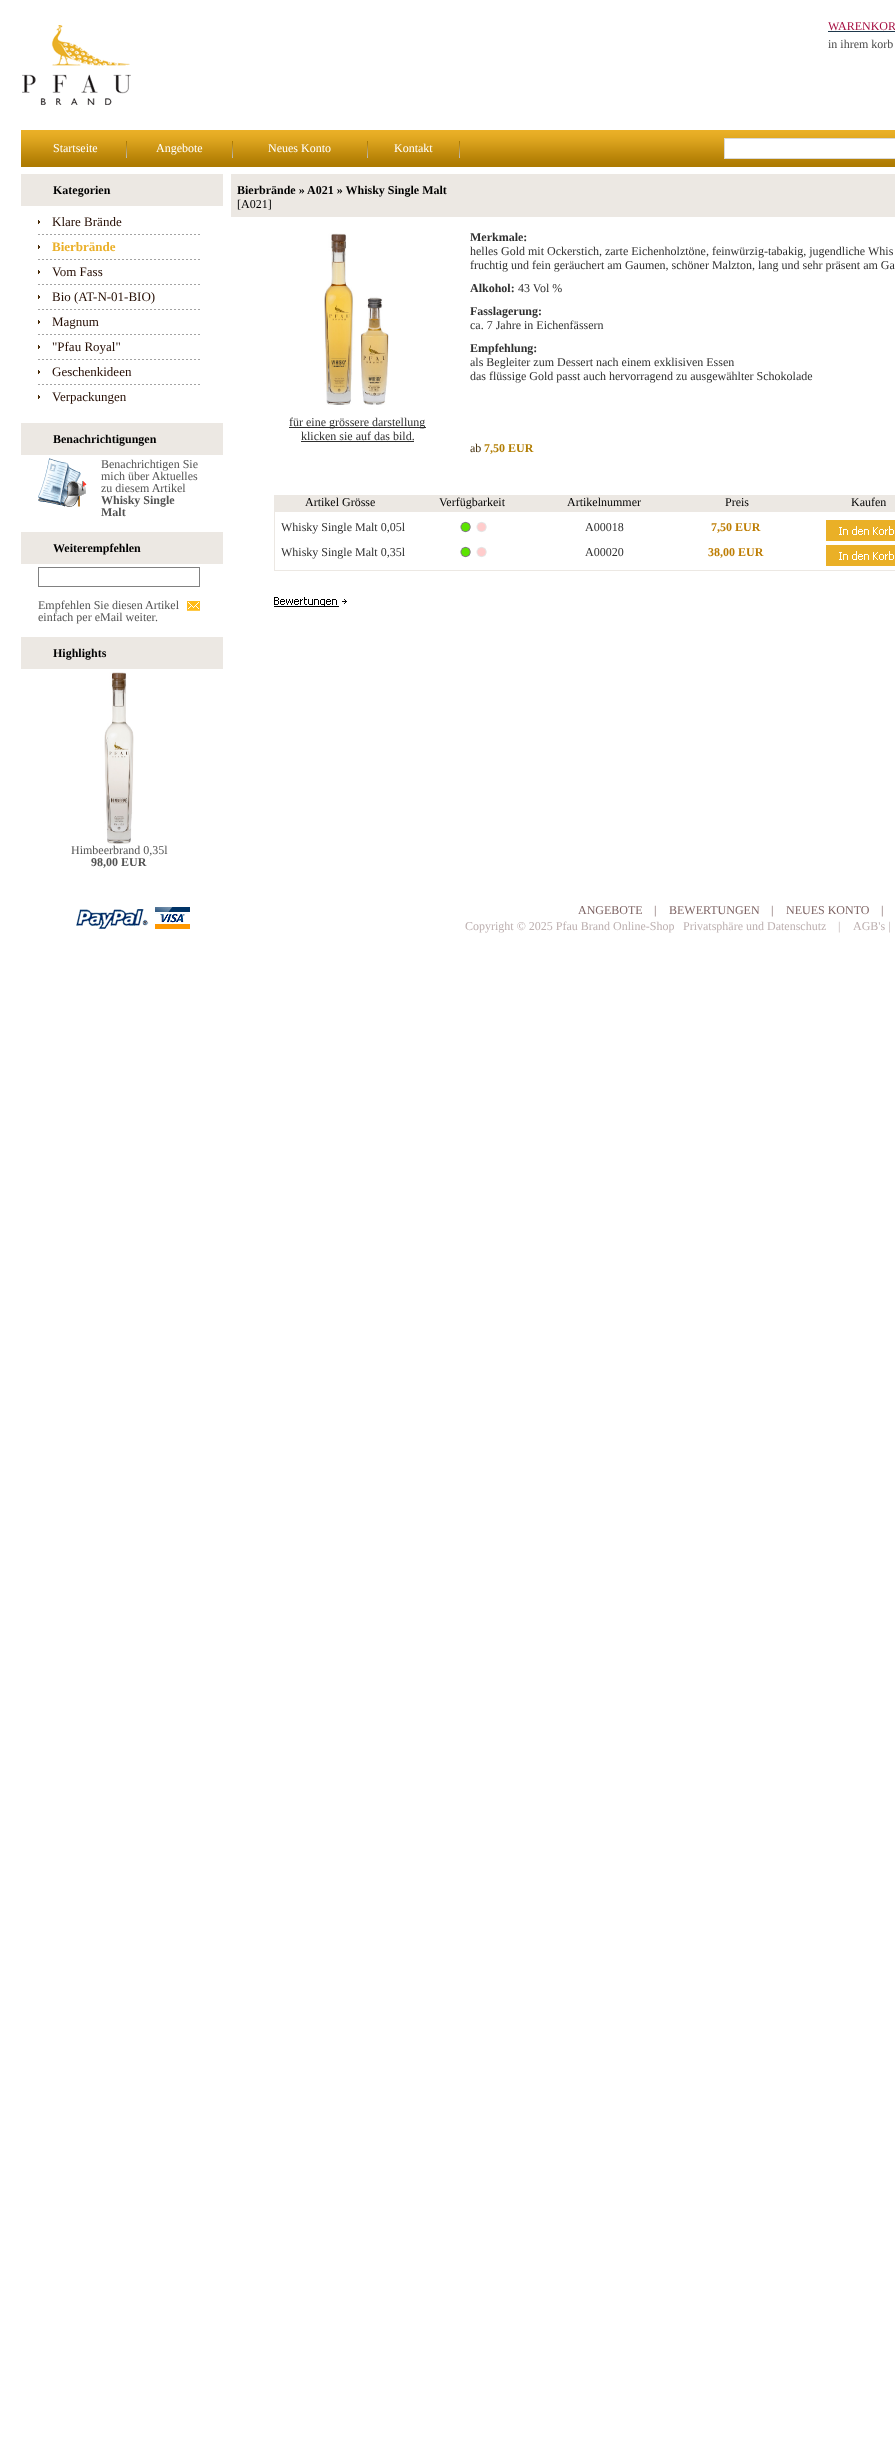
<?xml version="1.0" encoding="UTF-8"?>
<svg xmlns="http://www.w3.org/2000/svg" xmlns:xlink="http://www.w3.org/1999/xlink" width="895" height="2460">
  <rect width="100%" height="100%" fill="#ffffff" />
  <image x="22" y="25" width="109" height="80" xlink:href="image1.png" />
  <rect x="828" y="31" width="67" height="1" fill="#1e384c" />
  <image x="21" y="130" width="874" height="37" xlink:href="image2.png" />
  <image x="126" y="141" width="1" height="17" xlink:href="image3.png" />
  <image x="232" y="141" width="1" height="17" xlink:href="image3.png" />
  <image x="367" y="141" width="1" height="17" xlink:href="image3.png" />
  <image x="459" y="141" width="1" height="17" xlink:href="image3.png" />
  <rect x="724.5" y="138.5" width="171" height="20" fill="#ffffff" stroke="#d9d9d9" />
  <rect x="21" y="174" width="202" height="32" fill="#ece8e3" />
  <image x="38" y="220" width="2" height="4" xlink:href="image4.png" />
  <image x="38" y="234" width="162" height="1" xlink:href="image5.png" />
  <image x="38" y="245" width="2" height="4" xlink:href="image4.png" />
  <image x="38" y="259" width="162" height="1" xlink:href="image5.png" />
  <image x="38" y="270" width="2" height="4" xlink:href="image4.png" />
  <image x="38" y="284" width="162" height="1" xlink:href="image5.png" />
  <image x="38" y="295" width="2" height="4" xlink:href="image4.png" />
  <image x="38" y="309" width="162" height="1" xlink:href="image5.png" />
  <image x="38" y="320" width="2" height="4" xlink:href="image4.png" />
  <image x="38" y="334" width="162" height="1" xlink:href="image5.png" />
  <image x="38" y="345" width="2" height="4" xlink:href="image4.png" />
  <image x="38" y="359" width="162" height="1" xlink:href="image5.png" />
  <image x="38" y="370" width="2" height="4" xlink:href="image4.png" />
  <image x="38" y="384" width="162" height="1" xlink:href="image5.png" />
  <image x="38" y="395" width="2" height="4" xlink:href="image4.png" />
  <rect x="21" y="423" width="202" height="32" fill="#ece8e3" />
  <image x="38" y="458" width="49" height="49" xlink:href="image6.png" />
  <rect x="21" y="532" width="202" height="32" fill="#ece8e3" />
  <rect x="38.5" y="567.5" width="161" height="19" fill="none" stroke="#818181" />
  <image x="187" y="601" width="13" height="10" xlink:href="image7.png" />
  <rect x="21" y="637" width="202" height="32" fill="#ece8e3" />
  <image x="104" y="672" width="30" height="172" xlink:href="image8.png" />
  <rect x="231" y="174" width="664" height="43" fill="#ece8e3" />
  <image x="324" y="233" width="65" height="172" xlink:href="image9.png" />
  <rect x="289" y="427" width="137" height="1" fill="#303030" />
  <rect x="301" y="441" width="113" height="1" fill="#303030" />
  <rect x="274" y="495" width="621" height="76" fill="#ece8e3" />
  <rect x="275" y="512" width="620" height="58" fill="#ffffff" />
  <image x="460" y="521" width="27" height="12" xlink:href="image10.png" />
  <image x="826" y="520" width="69" height="21" xlink:href="image11.png" />
  <image x="460" y="546" width="27" height="12" xlink:href="image10.png" />
  <image x="826" y="545" width="69" height="21" xlink:href="image11.png" />
  <image x="274" y="597" width="73" height="10" xlink:href="image12.png" />
  <image x="76" y="907" width="114" height="22" xlink:href="image13.png" />
  <text x="828" y="30" style="font-family: Liberation Serif; font-size: 12px; fill: #a60e41">WARENKOR</text>
  <text x="828" y="48" style="font-family: Liberation Serif; font-size: 12px; fill: #4b4b4b">in ihrem korb</text>
  <text x="53" y="152" style="font-family: Liberation Serif; font-size: 12px; fill: #ffffff">Startseite</text>
  <text x="156" y="152" style="font-family: Liberation Serif; font-size: 12px; fill: #ffffff">Angebote</text>
  <text x="268" y="152" style="font-family: Liberation Serif; font-size: 12px; fill: #ffffff">Neues Konto</text>
  <text x="394" y="152" style="font-family: Liberation Serif; font-size: 12px; fill: #ffffff">Kontakt</text>
  <text x="53" y="194" style="font-family: Liberation Serif; font-size: 12px; font-weight: bold; fill: #000000">Kategorien</text>
  <text x="52" y="226" style="font-family: Liberation Serif; font-size: 13px; fill: #240c02">Klare Brände</text>
  <text x="52" y="251" style="font-family: Liberation Serif; font-size: 13px; font-weight: bold; fill: #ebb029">Bierbrände</text>
  <text x="52" y="276" style="font-family: Liberation Serif; font-size: 13px; fill: #240c02">Vom Fass</text>
  <text x="52" y="301" style="font-family: Liberation Serif; font-size: 13px; fill: #240c02">Bio (AT-N-01-BIO)</text>
  <text x="52" y="326" style="font-family: Liberation Serif; font-size: 13px; fill: #240c02">Magnum</text>
  <text x="52" y="351" style="font-family: Liberation Serif; font-size: 13px; fill: #240c02">"Pfau Royal"</text>
  <text x="52" y="376" style="font-family: Liberation Serif; font-size: 13px; fill: #240c02">Geschenkideen</text>
  <text x="52" y="401" style="font-family: Liberation Serif; font-size: 13px; fill: #240c02">Verpackungen</text>
  <text x="53" y="443" style="font-family: Liberation Serif; font-size: 12px; font-weight: bold; fill: #000000">Benachrichtigungen</text>
  <text x="101" y="468" style="font-family: Liberation Serif; font-size: 12px; fill: #535353">Benachrichtigen Sie</text>
  <text x="101" y="480" style="font-family: Liberation Serif; font-size: 12px; fill: #535353">mich über Aktuelles</text>
  <text x="101" y="492" style="font-family: Liberation Serif; font-size: 12px; fill: #535353">zu diesem Artikel</text>
  <text x="101" y="504" style="font-family: Liberation Serif; font-size: 12px; font-weight: bold; fill: #535353">Whisky Single</text>
  <text x="101" y="516" style="font-family: Liberation Serif; font-size: 12px; font-weight: bold; fill: #535353">Malt</text>
  <text x="53" y="552" style="font-family: Liberation Serif; font-size: 12px; font-weight: bold; fill: #000000">Weiterempfehlen</text>
  <text x="38" y="609" style="font-family: Liberation Serif; font-size: 12px; fill: #535353">Empfehlen Sie diesen Artikel</text>
  <text x="38" y="621" style="font-family: Liberation Serif; font-size: 12px; fill: #535353">einfach per eMail weiter.</text>
  <text x="53" y="657" style="font-family: Liberation Serif; font-size: 12px; font-weight: bold; fill: #000000">Highlights</text>
  <text x="71" y="854" style="font-family: Liberation Serif; font-size: 12px; fill: #535353">Himbeerbrand 0,35l</text>
  <text x="91" y="866" style="font-family: Liberation Serif; font-size: 12px; font-weight: bold; fill: #535353">98,00 EUR</text>
  <text x="237" y="194" style="font-family: Liberation Serif; font-size: 12px; font-weight: bold; fill: #000000">Bierbrände » A021 » Whisky Single Malt</text>
  <text x="237" y="208" style="font-family: Liberation Serif; font-size: 12px; fill: #000000">[A021]</text>
  <text x="289" y="426" style="font-family: Liberation Serif; font-size: 12px; fill: #303030">für eine grössere darstellung</text>
  <text x="301" y="440" style="font-family: Liberation Serif; font-size: 12px; fill: #303030">klicken sie auf das bild.</text>
  <text x="470" y="241" style="font-family: Liberation Serif; font-size: 12px; font-weight: bold; fill: #303030">Merkmale:</text>
  <text x="470" y="255" style="font-family: Liberation Serif; font-size: 12px; fill: #303030">helles Gold mit Ockerstich, zarte Eichenholztöne, feinwürzig-tabakig, jugendliche Whis</text>
  <text x="470" y="269" style="font-family: Liberation Serif; font-size: 12px; fill: #303030">fruchtig und fein geräuchert am Gaumen, schöner Malzton, lang und sehr präsent am Ga</text>
  <text x="470" y="292" style="font-family: Liberation Serif; font-size: 12px; font-weight: bold; fill: #303030">Alkohol:</text>
  <text x="518" y="292" style="font-family: Liberation Serif; font-size: 12px; fill: #303030">43 Vol %</text>
  <text x="470" y="315" style="font-family: Liberation Serif; font-size: 12px; font-weight: bold; fill: #303030">Fasslagerung:</text>
  <text x="470" y="329" style="font-family: Liberation Serif; font-size: 12px; fill: #303030">ca. 7 Jahre in Eichenfässern</text>
  <text x="470" y="352" style="font-family: Liberation Serif; font-size: 12px; font-weight: bold; fill: #303030">Empfehlung:</text>
  <text x="470" y="366" style="font-family: Liberation Serif; font-size: 12px; fill: #303030">als Begleiter zum Dessert nach einem exklisiven Essen</text>
  <text x="470" y="380" style="font-family: Liberation Serif; font-size: 12px; fill: #303030">das flüssige Gold passt auch hervorragend zu ausgewählter Schokolade</text>
  <text x="470" y="452" style="font-family: Liberation Serif; font-size: 12px; fill: #432f0c">ab</text>
  <text x="484" y="452" style="font-family: Liberation Serif; font-size: 12px; font-weight: bold; fill: #b27e04">7,50 EUR</text>
  <text x="305" y="506" style="font-family: Liberation Serif; font-size: 12px; fill: #000000">Artikel Grösse</text>
  <text x="439" y="506" style="font-family: Liberation Serif; font-size: 12px; fill: #000000">Verfügbarkeit</text>
  <text x="567" y="506" style="font-family: Liberation Serif; font-size: 12px; fill: #000000">Artikelnummer</text>
  <text x="725" y="506" style="font-family: Liberation Serif; font-size: 12px; fill: #000000">Preis</text>
  <text x="851" y="506" style="font-family: Liberation Serif; font-size: 12px; fill: #000000">Kaufen</text>
  <text x="281" y="531" style="font-family: Liberation Serif; font-size: 12px; fill: #303030">Whisky Single Malt 0,05l</text>
  <text x="585" y="531" style="font-family: Liberation Serif; font-size: 12px; fill: #303030">A00018</text>
  <text x="711" y="531" style="font-family: Liberation Serif; font-size: 12px; font-weight: bold; fill: #be7e04">7,50 EUR</text>
  <text x="281" y="556" style="font-family: Liberation Serif; font-size: 12px; fill: #303030">Whisky Single Malt 0,35l</text>
  <text x="585" y="556" style="font-family: Liberation Serif; font-size: 12px; fill: #303030">A00020</text>
  <text x="708" y="556" style="font-family: Liberation Serif; font-size: 12px; font-weight: bold; fill: #be7e04">38,00 EUR</text>
  <text x="578" y="914" style="font-family: Liberation Serif; font-size: 12px; fill: #7e6464">ANGEBOTE</text>
  <text x="654" y="914" style="font-family: Liberation Serif; font-size: 12px; fill: #7e6464">|</text>
  <text x="669" y="914" style="font-family: Liberation Serif; font-size: 12px; fill: #7e6464">BEWERTUNGEN</text>
  <text x="771" y="914" style="font-family: Liberation Serif; font-size: 12px; fill: #7e6464">|</text>
  <text x="786" y="914" style="font-family: Liberation Serif; font-size: 12px; fill: #7e6464">NEUES KONTO</text>
  <text x="881" y="914" style="font-family: Liberation Serif; font-size: 12px; fill: #7e6464">|</text>
  <text x="465" y="930" style="font-family: Liberation Serif; font-size: 12px; fill: #bdb0b0">Copyright © 2025 Pfau Brand Online-Shop</text>
  <text x="683" y="930" style="font-family: Liberation Serif; font-size: 12px; fill: #bdb0b0">Privatsphäre und Datenschutz</text>
  <text x="838" y="930" style="font-family: Liberation Serif; font-size: 12px; fill: #bdb0b0">|</text>
  <text x="853" y="930" style="font-family: Liberation Serif; font-size: 12px; fill: #bdb0b0">AGB's |</text>
</svg>
